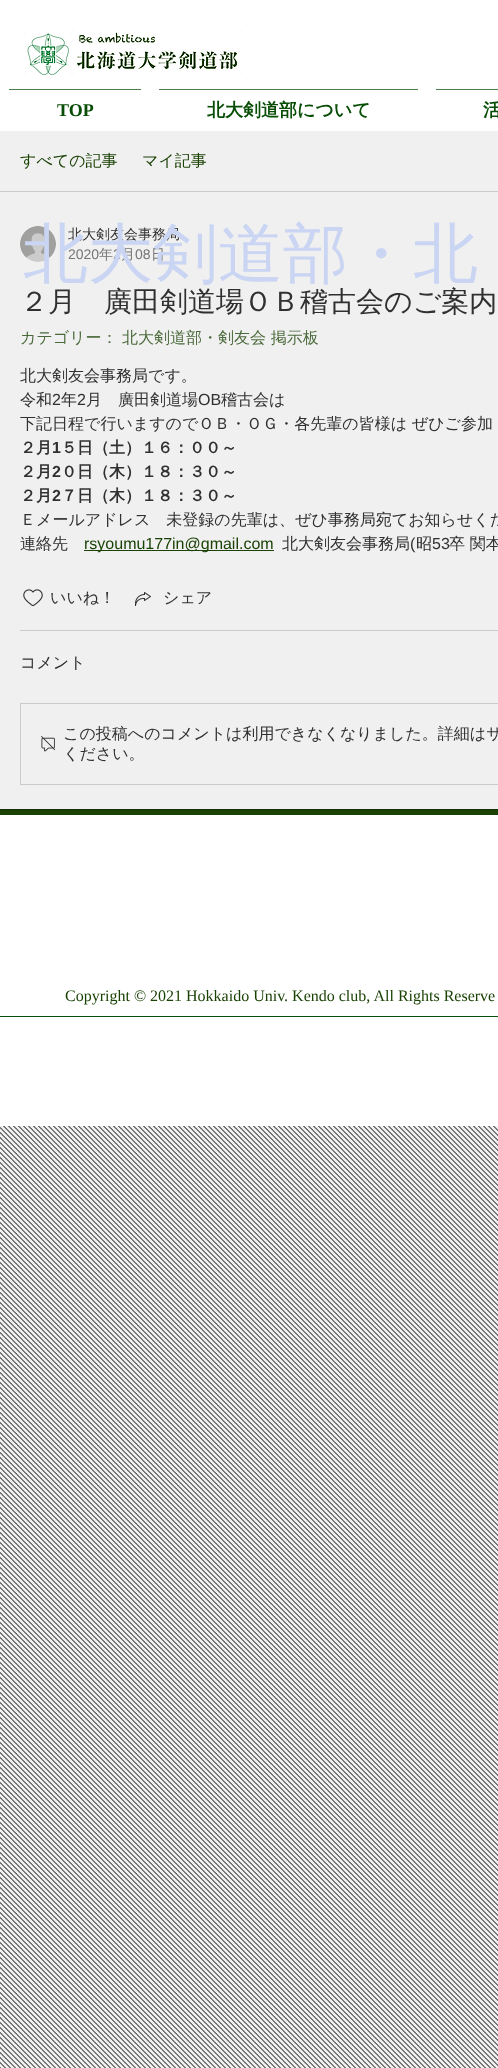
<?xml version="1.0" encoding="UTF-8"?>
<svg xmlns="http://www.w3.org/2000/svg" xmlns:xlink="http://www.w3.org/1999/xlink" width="498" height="2068">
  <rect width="100%" height="100%" fill="#f0f0f0" />
  <rect width="498" height="131" fill="#ffffff" />
  <rect x="24" y="31" width="48" height="45" rx="5" fill="#f0f0f0" />
  <image x="24" y="31" width="48" height="45" xlink:href="image1.png" />
  <rect x="72" y="28" width="170" height="48" rx="5" fill="#f0f0f0" />
  <image x="72" y="28" width="170" height="48" xlink:href="image2.png" />
  <rect x="9" y="89" width="132" height="1" fill="#4a7d49" />
  <rect x="159" y="89" width="259" height="1" fill="#4a7d49" />
  <rect x="436" y="89" width="62" height="1" fill="#4a7d49" />
  <rect y="191" width="498" height="1" fill="#cacaca" />
  <image x="20" y="226" width="36" height="36" xlink:href="image3.png" />
  <rect x="84" y="550" width="190" height="1" fill="#1a4205" />
  <image x="23" y="589" width="20" height="18" xlink:href="image4.png" />
  <image x="135" y="592" width="16" height="14" xlink:href="image5.png" />
  <rect x="20" y="630" width="478" height="1" fill="#cacaca" />
  <rect x="20.5" y="703.5" width="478" height="81" fill="none" stroke="#cacaca" />
  <image x="41" y="736" width="14" height="16" xlink:href="image6.png" />
  <rect y="815" width="498" height="311" fill="#ffffff" />
  <rect y="810" width="498" height="5" fill="#1a4205" />
  <path d="M -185 810 h 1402 c 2 0 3 1 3 2 l -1 -2 l -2 -1 h -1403 c -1 1 -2 2 -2 3 c 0 -1 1 -2 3 -2 z" fill="#143204" />
  <rect y="1016" width="498" height="1" fill="#074d05" />
  <image x="0" y="1126" width="498" height="942" xlink:href="image7.png" />
  <text x="57" y="116" style="font-family: Liberation Serif; font-size: 18px; font-weight: bold; fill: #074d05">TOP</text>
  <text x="207" y="116" style="font-family: WenQuanYi Zen Hei; font-size: 18px; font-weight: bold; fill: #074d05">北大剣道部について</text>
  <text x="483" y="116" style="font-family: WenQuanYi Zen Hei; font-size: 18px; font-weight: bold; fill: #074d05">活</text>
  <text x="20" y="166" style="font-family: WenQuanYi Zen Hei; font-size: 16px; font-weight: 500; fill: #1a4205">すべての記事</text>
  <text x="142" y="166" style="font-family: WenQuanYi Zen Hei; font-size: 16px; font-weight: 500; fill: #1a4205">マイ記事</text>
  <text x="68" y="239" style="font-family: WenQuanYi Zen Hei; font-size: 14px; font-weight: 500; fill: #303030">北大剣友会事務局</text>
  <text x="68" y="259" style="font-family: Liberation Sans; font-size: 14px; fill: #757575">2020</text>
  <text x="99" y="259" style="font-family: WenQuanYi Zen Hei; font-size: 14px; font-weight: 500; fill: #757575">年</text>
  <text x="113" y="259" style="font-family: Liberation Sans; font-size: 14px; fill: #757575">2</text>
  <text x="121" y="259" style="font-family: WenQuanYi Zen Hei; font-size: 14px; font-weight: 500; fill: #757575">月</text>
  <text x="135" y="259" style="font-family: Liberation Sans; font-size: 14px; fill: #757575">08</text>
  <text x="151" y="259" style="font-family: WenQuanYi Zen Hei; font-size: 14px; font-weight: 500; fill: #757575">日</text>
  <text x="20" y="311" style="font-family: WenQuanYi Zen Hei; font-size: 28px; font-weight: 500; fill: #303030">２月　廣田剣道場ＯＢ稽古会のご案内</text>
  <text x="20" y="343" style="font-family: WenQuanYi Zen Hei; font-size: 16px; font-weight: 500; fill: #4b6a3b">カテゴリー：</text>
  <text x="122" y="343" style="font-family: WenQuanYi Zen Hei; font-size: 16px; font-weight: 500; fill: #4b6a3b">北大剣道部・剣友会 掲示板</text>
  <text x="20" y="381" style="font-family: WenQuanYi Zen Hei; font-size: 16px; font-weight: 500; fill: #303030">北大剣友会事務局です。</text>
  <text x="20" y="405" style="font-family: WenQuanYi Zen Hei; font-size: 16px; font-weight: 500; fill: #303030">令和</text>
  <text x="52" y="405" style="font-family: Liberation Sans; font-size: 16px; fill: #303030">2</text>
  <text x="61" y="405" style="font-family: WenQuanYi Zen Hei; font-size: 16px; font-weight: 500; fill: #303030">年</text>
  <text x="77" y="405" style="font-family: Liberation Sans; font-size: 16px; fill: #303030">2</text>
  <text x="86" y="405" style="font-family: WenQuanYi Zen Hei; font-size: 16px; font-weight: 500; fill: #303030">月　廣田剣道場</text>
  <text x="198" y="405" style="font-family: Liberation Sans; font-size: 16px; fill: #303030">OB</text>
  <text x="221" y="405" style="font-family: WenQuanYi Zen Hei; font-size: 16px; font-weight: 500; fill: #303030">稽古会は</text>
  <text x="20" y="429" style="font-family: WenQuanYi Zen Hei; font-size: 16px; font-weight: 500; fill: #303030">下記日程で行いますのでＯＢ・ＯＧ・各先輩の皆様は ぜひご参加</text>
  <text x="20" y="453" style="font-family: WenQuanYi Zen Hei; font-size: 16px; font-weight: bold; fill: #303030">２月</text>
  <text x="52" y="453" style="font-family: Liberation Sans; font-size: 16px; font-weight: bold; fill: #303030">1</text>
  <text x="61" y="453" style="font-family: WenQuanYi Zen Hei; font-size: 16px; font-weight: bold; fill: #303030">５日（土）１６：００～</text>
  <text x="20" y="477" style="font-family: WenQuanYi Zen Hei; font-size: 16px; font-weight: bold; fill: #303030">２月</text>
  <text x="52" y="477" style="font-family: Liberation Sans; font-size: 16px; font-weight: bold; fill: #303030">2</text>
  <text x="61" y="477" style="font-family: WenQuanYi Zen Hei; font-size: 16px; font-weight: bold; fill: #303030">０日（木）１８：３０～</text>
  <text x="20" y="501" style="font-family: WenQuanYi Zen Hei; font-size: 16px; font-weight: bold; fill: #303030">２月</text>
  <text x="52" y="501" style="font-family: Liberation Sans; font-size: 16px; font-weight: bold; fill: #303030">2</text>
  <text x="61" y="501" style="font-family: WenQuanYi Zen Hei; font-size: 16px; font-weight: bold; fill: #303030">７日（木）１８：３０～</text>
  <text x="20" y="525" style="font-family: WenQuanYi Zen Hei; font-size: 16px; font-weight: 500; fill: #303030">Ｅメールアドレス　未登録の先輩は、ぜひ事務局宛てお知らせくだ</text>
  <text x="20" y="549" style="font-family: WenQuanYi Zen Hei; font-size: 16px; font-weight: 500; fill: #303030">連絡先</text>
  <text x="84" y="549" style="font-family: Liberation Sans; font-size: 16px; fill: #1a4205">rsyoumu177in@gmail.com</text>
  <text x="282" y="549" style="font-family: WenQuanYi Zen Hei; font-size: 16px; font-weight: 500; fill: #303030">北大剣友会事務局</text>
  <text x="410" y="549" style="font-family: Liberation Sans; font-size: 16px; fill: #303030">(</text>
  <text x="416" y="549" style="font-family: WenQuanYi Zen Hei; font-size: 16px; font-weight: 500; fill: #303030">昭</text>
  <text x="432" y="549" style="font-family: Liberation Sans; font-size: 16px; fill: #303030">53</text>
  <text x="449" y="549" style="font-family: WenQuanYi Zen Hei; font-size: 16px; font-weight: 500; fill: #303030">卒 関本</text>
  <text x="50" y="603" style="font-family: WenQuanYi Zen Hei; font-size: 16px; font-weight: 500; fill: #303030">いいね！</text>
  <text x="163" y="603" style="font-family: WenQuanYi Zen Hei; font-size: 16px; font-weight: 500; fill: #303030">シェア</text>
  <text x="20" y="668" style="font-family: WenQuanYi Zen Hei; font-size: 16px; font-weight: 500; fill: #303030">コメント</text>
  <text x="63" y="739" style="font-family: WenQuanYi Zen Hei; font-size: 16px; font-weight: 500; fill: #303030">この投稿へのコメントは利用できなくなりました。詳細はサ</text>
  <text x="63" y="759" style="font-family: WenQuanYi Zen Hei; font-size: 16px; font-weight: 500; fill: #303030">ください。</text>
  <text x="23" y="276" word-spacing="-3" style="font-family: WenQuanYi Zen Hei; font-size: 65px; font-weight: 500; fill: #c9d5f2">北大剣道部・北</text>
  <text x="65" y="1001" style="font-family: Liberation Serif; font-size: 16px; fill: #1a4205">Copyright ©︎ 2021 Hokkaido Univ. Kendo club, All Rights Reserve</text>
</svg>
